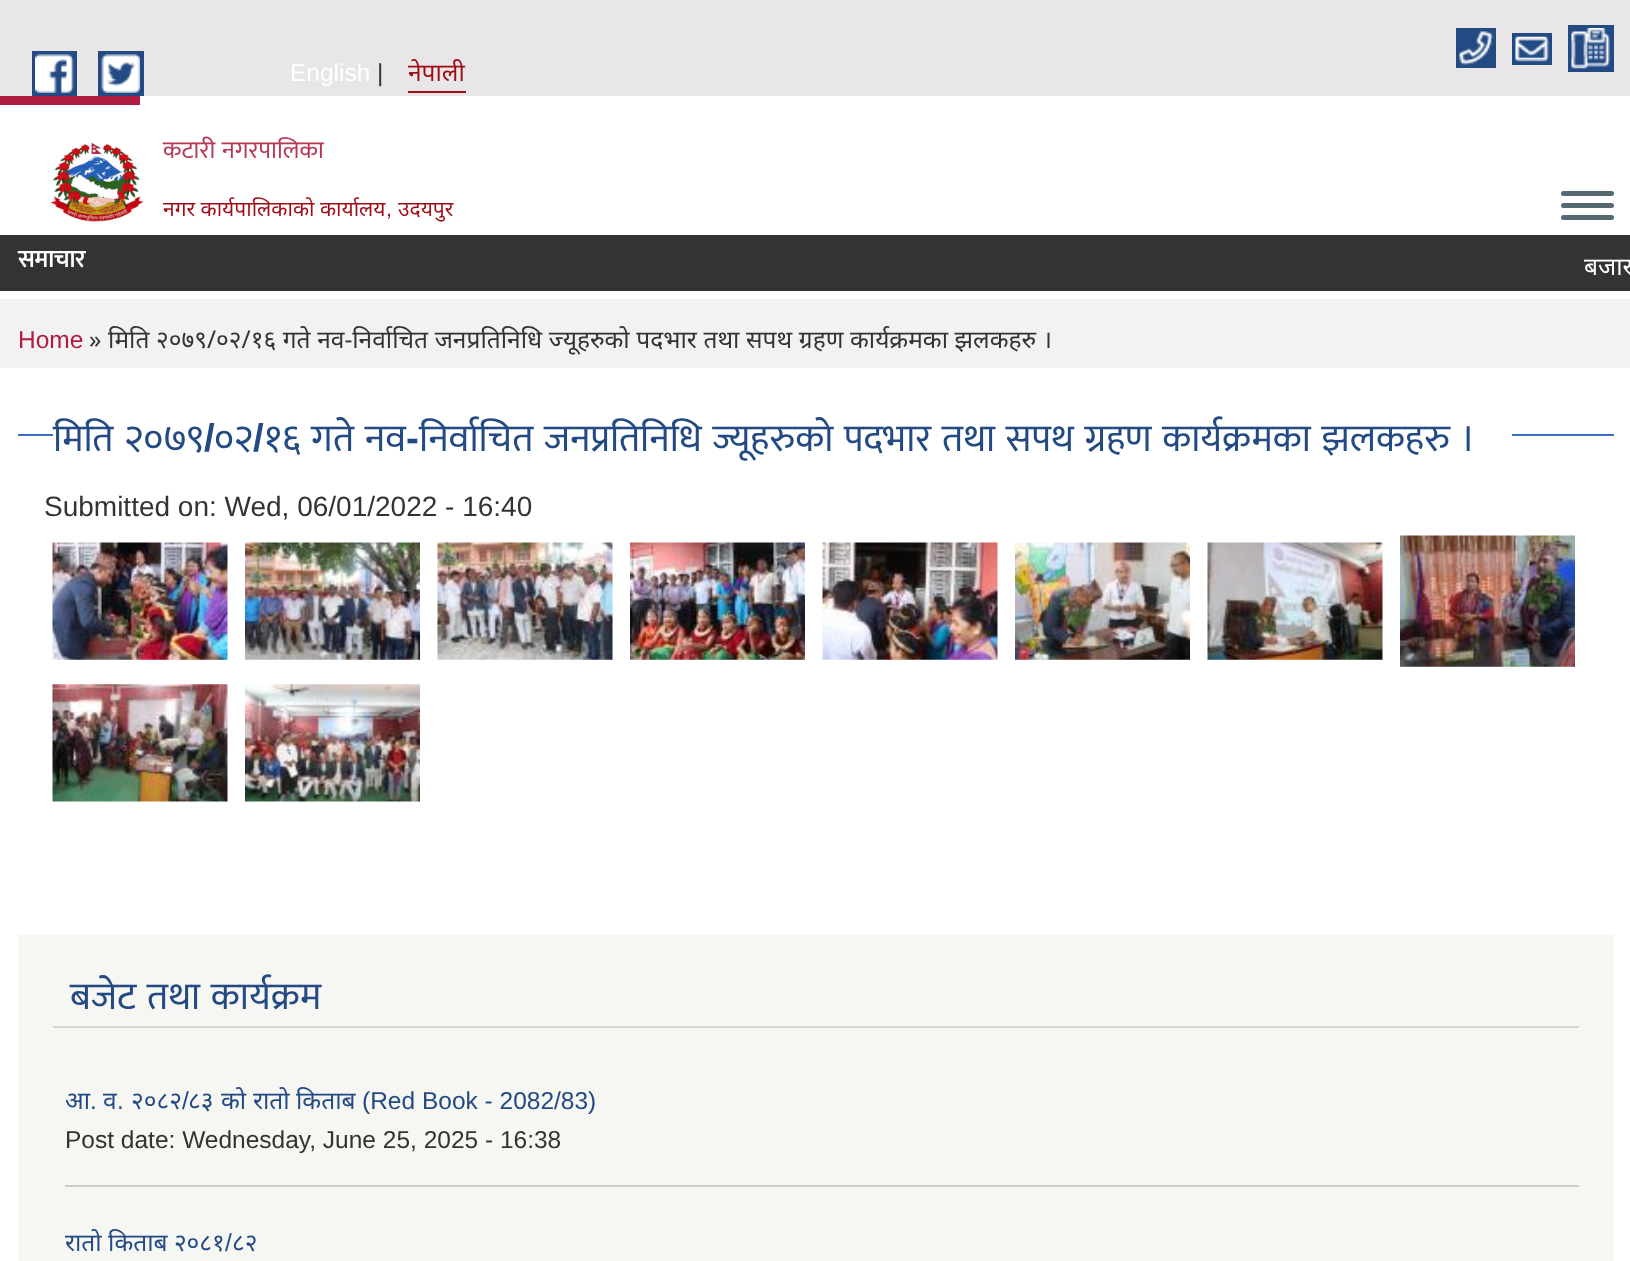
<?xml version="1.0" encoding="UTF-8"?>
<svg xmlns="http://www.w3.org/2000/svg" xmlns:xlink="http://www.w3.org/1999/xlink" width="1630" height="1261">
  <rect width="100%" height="100%" fill="#ffffff" />
  <rect width="1630" height="96" fill="#e8e6e6" />
  <rect x="32" y="51" width="45" height="45" fill="#234a83" />
  <rect x="98" y="51" width="46" height="45" fill="#234a83" />
  <image x="35" y="54" width="39" height="39" xlink:href="image1.png" />
  <image x="101" y="54" width="39" height="39" xlink:href="image2.png" />
  <rect x="408" y="91" width="58" height="2" fill="#9e0c18" />
  <rect x="1456" y="28" width="40" height="40" fill="#234a83" />
  <rect x="1568" y="25" width="46" height="47" fill="#234a83" />
  <image x="1459" y="31" width="34" height="34" xlink:href="image3.png" />
  <rect x="1512" y="33" width="40" height="32" fill="#234a83" />
  <image x="1571" y="28" width="39" height="41" xlink:href="image4.png" />
  <image x="1515" y="36" width="34" height="26" xlink:href="image5.png" />
  <rect y="96" width="140" height="9" fill="#b21c42" />
  <image x="50" y="142" width="94" height="80" xlink:href="image6.png" />
  <rect x="1561" y="191" width="53" height="5" rx="2.5" fill="#566973" />
  <rect x="1561" y="203" width="53" height="5" rx="2.5" fill="#566973" />
  <rect x="1561" y="215" width="53" height="5" rx="2.5" fill="#566973" />
  <rect y="235" width="1630" height="56" fill="#333333" />
  <rect y="299" width="1630" height="69" fill="#f2f2f2" />
  <rect x="18" y="434" width="1596" height="2" fill="#376fc2" />
  <rect x="53" y="434" width="1459" height="2" fill="#ffffff" />
  <image x="52" y="542" width="176" height="118" xlink:href="image7.png" />
  <image x="245" y="542" width="175" height="118" xlink:href="image8.png" />
  <image x="437" y="542" width="176" height="118" xlink:href="image9.png" />
  <image x="630" y="542" width="175" height="118" xlink:href="image10.png" />
  <image x="822" y="542" width="176" height="118" xlink:href="image11.png" />
  <image x="1015" y="542" width="175" height="118" xlink:href="image12.png" />
  <image x="1207" y="542" width="176" height="118" xlink:href="image13.png" />
  <image x="1400" y="535" width="175" height="132" xlink:href="image14.png" />
  <image x="52" y="684" width="176" height="118" xlink:href="image15.png" />
  <image x="245" y="684" width="175" height="118" xlink:href="image16.png" />
  <rect x="18" y="935" width="1596" height="326" fill="#f6f6f2" />
  <rect x="53" y="1026" width="1526" height="2" fill="#d6d6d6" />
  <rect x="65" y="1185" width="1514" height="2" fill="#cccccc" />
  <text x="290" y="81" style="font-family: Liberation Sans; font-size: 24.5px; fill: #ffffff">English</text>
  <text x="377" y="81" style="font-family: Liberation Sans; font-size: 24.5px; fill: #333333">|</text>
  <text x="408" y="81" style="font-family: Noto Sans; font-size: 24.5px; fill: #9e0c18">नेपाली</text>
  <text x="163" y="158" word-spacing="1" style="font-family: Mukta; font-size: 24.5px; fill: #b83955">कटारी नगरपालिका</text>
  <text x="163" y="216" style="font-family: Noto Sans; font-size: 21px; fill: #9e0c18">नगर कार्यपालिकाको कार्यालय</text>
  <text x="386" y="216" style="font-family: Liberation Sans; font-size: 21px; fill: #9e0c18">,</text>
  <text x="398" y="216" style="font-family: Noto Sans; font-size: 21px; fill: #9e0c18">उदयपुर</text>
  <text x="18" y="267" style="font-family: Mukta; font-size: 24.5px; font-weight: bold; fill: #ffffff">समाचार</text>
  <text x="1584" y="275" style="font-family: Noto Sans; font-size: 24.5px; fill: #ffffff">बजार</text>
  <text x="18" y="348" style="font-family: Liberation Sans; font-size: 24.5px; fill: #b21c42">Home</text>
  <text x="89" y="348" word-spacing="0.25" style="font-family: Noto Sans; font-size: 24.5px; fill: #333333">» मिति २०७९/०२/१६ गते नव-निर्वाचित जनप्रतिनिधि ज्यूहरुको पदभार तथा सपथ ग्रहण कार्यक्रमका झलकहरु ।</text>
  <text x="53" y="451" word-spacing="2" style="font-family: Mukta; font-size: 38.5px; fill: #234a83">मिति २०७९</text>
  <text x="204" y="451" style="font-family: Liberation Sans; font-size: 38.5px; font-weight: bold; fill: #234a83">/</text>
  <text x="214" y="451" style="font-family: Mukta; font-size: 38.5px; fill: #234a83">०२</text>
  <text x="253" y="451" style="font-family: Liberation Sans; font-size: 38.5px; font-weight: bold; fill: #234a83">/</text>
  <text x="264" y="451" word-spacing="2" style="font-family: Mukta; font-size: 38.5px; fill: #234a83">१६ गते नव</text>
  <text x="406" y="451" style="font-family: Liberation Sans; font-size: 38.5px; font-weight: bold; fill: #234a83">-</text>
  <text x="419" y="451" word-spacing="2" style="font-family: Mukta; font-size: 38.5px; fill: #234a83">निर्वाचित जनप्रतिनिधि ज्यूहरुको पदभार तथा सपथ ग्रहण कार्यक्रमका झलकहरु ।</text>
  <text x="44" y="516" style="font-family: Liberation Sans; font-size: 28px; fill: #333333">Submitted on: Wed, 06/01/2022 - 16:40</text>
  <text x="70" y="1009" word-spacing="2" style="font-family: Mukta; font-size: 38.5px; fill: #234a83">बजेट तथा कार्यक्रम</text>
  <text x="65" y="1109" style="font-family: Noto Sans; font-size: 24.5px; fill: #234a83">आ</text>
  <text x="90" y="1109" style="font-family: Liberation Sans; font-size: 24.5px; fill: #234a83">.</text>
  <text x="103" y="1109" style="font-family: Noto Sans; font-size: 24.5px; fill: #234a83">व</text>
  <text x="117" y="1109" style="font-family: Liberation Sans; font-size: 24.5px; fill: #234a83">.</text>
  <text x="131" y="1109" style="font-family: Noto Sans; font-size: 24.5px; fill: #234a83">२०८२</text>
  <text x="182" y="1109" style="font-family: Liberation Sans; font-size: 24.5px; fill: #234a83">/</text>
  <text x="188" y="1109" style="font-family: Noto Sans; font-size: 24.5px; fill: #234a83">८३</text>
  <text x="221" y="1109" style="font-family: Noto Sans; font-size: 24.5px; fill: #234a83">को</text>
  <text x="253" y="1109" style="font-family: Noto Sans; font-size: 24.5px; fill: #234a83">रातो</text>
  <text x="296" y="1109" style="font-family: Noto Sans; font-size: 24.5px; fill: #234a83">किताब</text>
  <text x="362" y="1109" style="font-family: Liberation Sans; font-size: 24.5px; fill: #234a83">(Red Book - 2082/83)</text>
  <text x="65" y="1148" style="font-family: Liberation Sans; font-size: 24.5px; fill: #333333">Post date: Wednesday, June 25, 2025 - 16:38</text>
  <text x="65" y="1251" style="font-family: Noto Sans; font-size: 24.5px; fill: #234a83">रातो किताब २०८१</text>
  <text x="225" y="1251" style="font-family: Liberation Sans; font-size: 24.5px; fill: #234a83">/</text>
  <text x="232" y="1251" style="font-family: Noto Sans; font-size: 24.5px; fill: #234a83">८२</text>
</svg>
